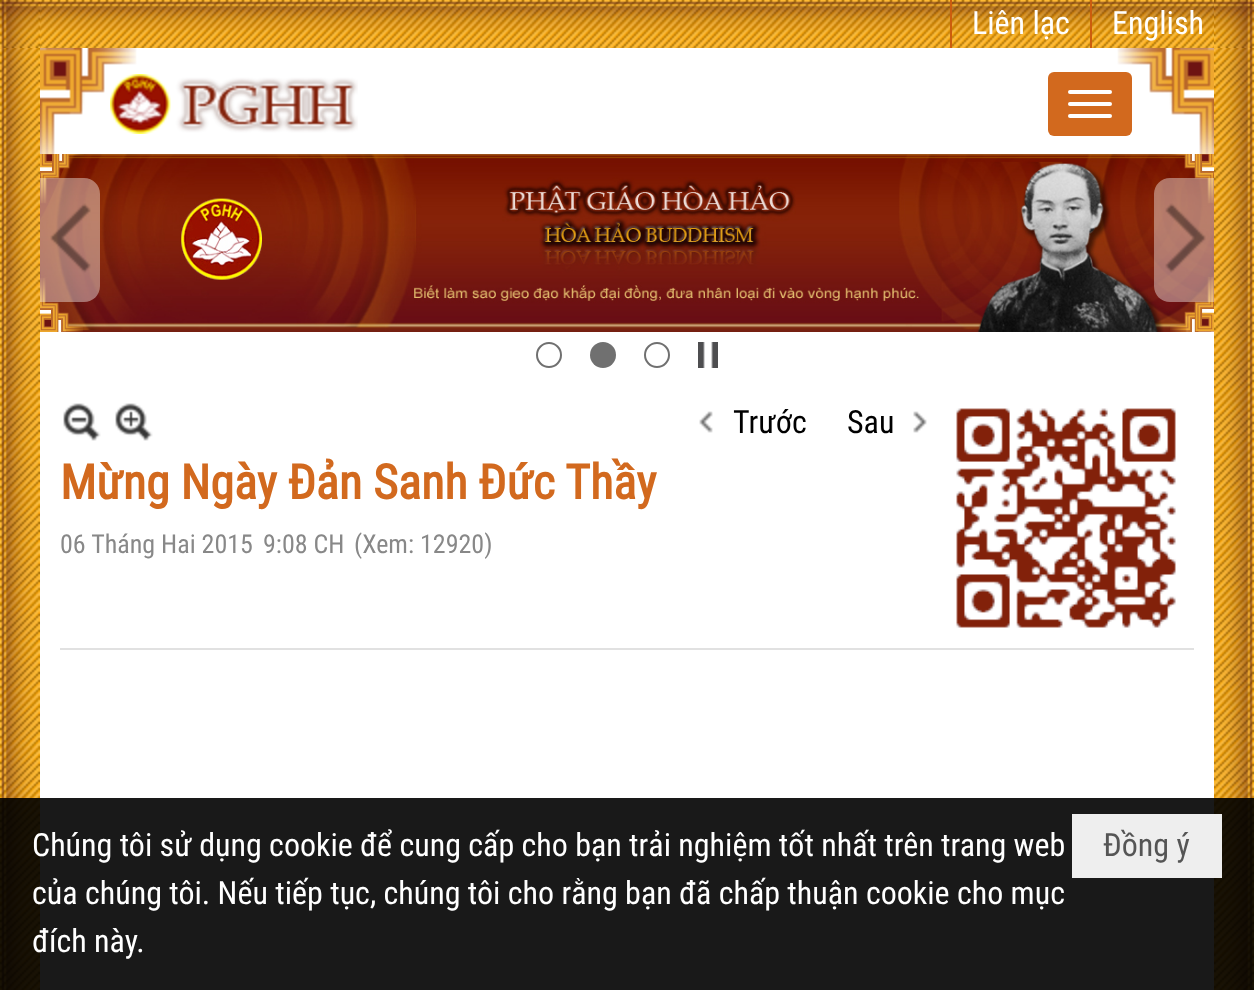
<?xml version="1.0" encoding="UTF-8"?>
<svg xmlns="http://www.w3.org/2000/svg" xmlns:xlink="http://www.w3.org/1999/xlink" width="1254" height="990">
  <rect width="100%" height="100%" fill="#ffffff" />
  <image x="0" y="154" width="1254" height="836" xlink:href="image1.png" />
  <image x="0" y="0" width="1254" height="48" xlink:href="image2.png" />
  <rect x="950" width="2" height="48" fill="#cc5d0e" />
  <rect x="1090" width="2" height="48" fill="#cc5d0e" />
  <image x="0" y="48" width="1254" height="106" xlink:href="image3.png" />
  <image x="40" y="48" width="1174" height="106" xlink:href="image4.png" />
  <image x="110" y="74" width="248" height="60" xlink:href="image5.png" />
  <rect x="1048" y="72" width="84" height="64" rx="6" fill="#d2691e" />
  <rect x="1068" y="90" width="44" height="4" rx="2" fill="#ffffff" />
  <rect x="1068" y="102" width="44" height="4" rx="2" fill="#ffffff" />
  <rect x="1068" y="114" width="44" height="4" rx="2" fill="#ffffff" />
  <image x="40" y="154" width="1174" height="178" xlink:href="image6.png" />
  <path d="M 40 178 h 44 c 9 0 16 7 16 16 v 92 c 0 9 -7 16 -16 16 h -44 z" fill="#ffffff" fill-opacity="0.4" />
  <image x="50" y="203" width="41" height="70" xlink:href="image7.png" />
  <path d="M 1170 178 h 44 v 124 h -44 c -9 0 -16 -7 -16 -16 v -92 c 0 -9 7 -16 16 -16 z" fill="#ffffff" fill-opacity="0.4" />
  <image x="1165" y="203" width="41" height="70" xlink:href="image8.png" />
  <circle cx="549" cy="355" r="12" fill="none" stroke="#707070" stroke-width="2" />
  <circle cx="603" cy="355" r="13" fill="#707070" />
  <circle cx="657" cy="355" r="12" fill="none" stroke="#707070" stroke-width="2" />
  <image x="698" y="342" width="20" height="26" xlink:href="image9.png" />
  <rect x="60" y="648" width="1134" height="2" fill="#e1e1e1" />
  <image x="63" y="403" width="38" height="38" xlink:href="image10.png" />
  <image x="115" y="403" width="38" height="38" xlink:href="image11.png" />
  <image x="699" y="411" width="14" height="22" xlink:href="image12.png" />
  <image x="913" y="411" width="14" height="22" xlink:href="image13.png" />
  <image x="956" y="408" width="220" height="220" xlink:href="image14.png" />
  <rect y="798" width="1254" height="192" fill="#000000" fill-opacity="0.9" />
  <rect x="1072" y="814" width="150" height="64" fill="#eeeeee" />
  <text x="972" y="34" style="font-family: Roboto Condensed; font-size: 32px; fill: #ffffff">Liên lạc</text>
  <text x="1112" y="34" style="font-family: Roboto Condensed; font-size: 32px; fill: #ffffff">English</text>
  <text x="733" y="433" style="font-family: Roboto Condensed; font-size: 32px; fill: #000000">Trước</text>
  <text x="847" y="433" style="font-family: Roboto Condensed; font-size: 32px; fill: #000000">Sau</text>
  <text x="60" y="499" style="font-family: Roboto Condensed; font-size: 48px; font-weight: bold; fill: #d2691e">Mừng Ngày Đản Sanh Đức Thầy</text>
  <text x="60" y="553" style="font-family: Roboto Condensed; font-size: 26px; fill: #888888">06 Tháng Hai 2015</text>
  <text x="263" y="553" style="font-family: Roboto Condensed; font-size: 26px; fill: #888888">9:08 CH</text>
  <text x="354" y="553" style="font-family: Roboto Condensed; font-size: 26px; fill: #888888">(Xem: 12920)</text>
  <text x="32" y="856" style="font-family: Roboto Condensed; font-size: 32px; fill: #ffffff">Chúng tôi sử dụng cookie để cung cấp cho bạn trải nghiệm tốt nhất trên trang web</text>
  <text x="32" y="904" style="font-family: Roboto Condensed; font-size: 32px; fill: #ffffff">của chúng tôi. Nếu tiếp tục, chúng tôi cho rằng bạn đã chấp thuận cookie cho mục</text>
  <text x="32" y="952" style="font-family: Roboto Condensed; font-size: 32px; fill: #ffffff">đích này.</text>
  <text x="1103" y="856" style="font-family: Roboto Condensed; font-size: 32px; fill: #555555">Đồng ý</text>
</svg>
